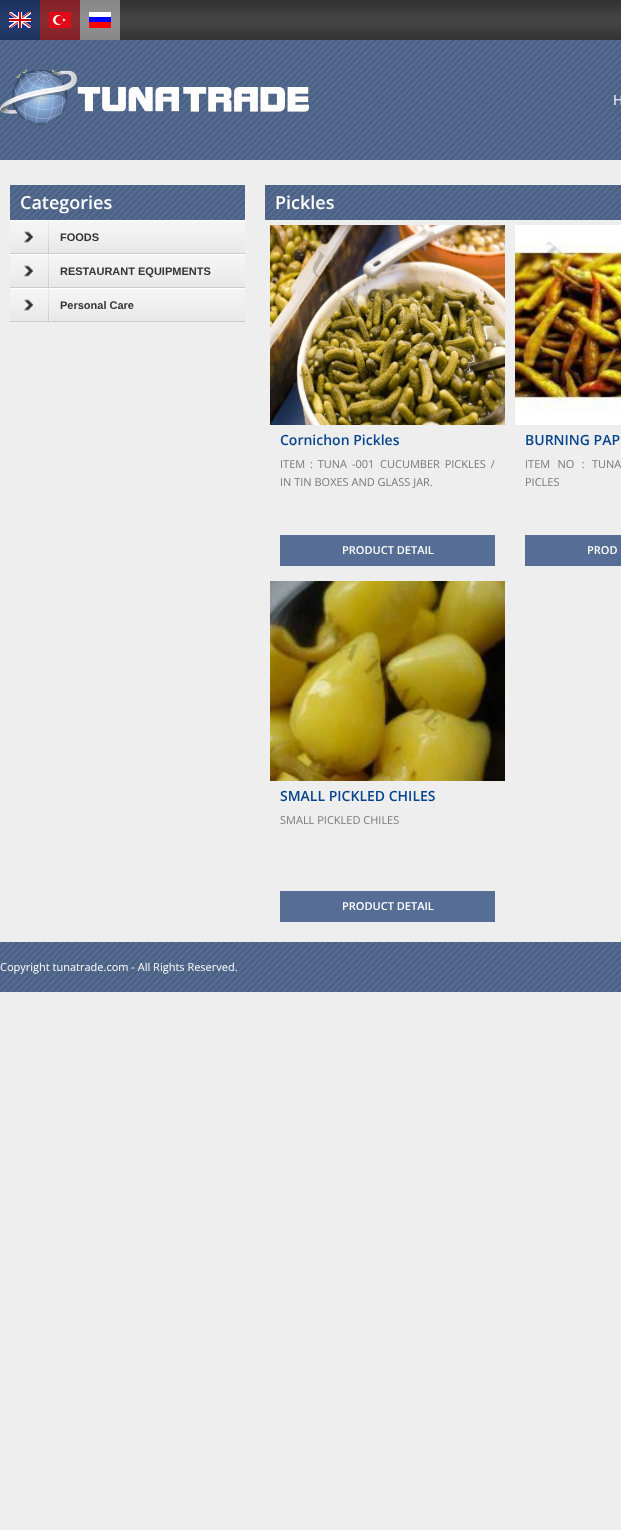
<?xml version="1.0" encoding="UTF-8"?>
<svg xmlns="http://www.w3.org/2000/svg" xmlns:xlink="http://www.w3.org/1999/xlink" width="621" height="1530">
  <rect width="100%" height="100%" fill="#eeeeee" />
  <image x="0" y="0" width="621" height="40" xlink:href="image1.png" />
  <rect width="40" height="40" fill="#003399" fill-opacity="0.45" />
  <image x="9" y="12" width="22" height="16" xlink:href="image2.png" />
  <rect x="40" width="40" height="40" fill="#e20b16" fill-opacity="0.45" />
  <image x="49" y="12" width="22" height="16" xlink:href="image3.png" />
  <rect x="80" width="40" height="40" fill="#ededed" fill-opacity="0.45" />
  <image x="89" y="12" width="22" height="16" xlink:href="image4.png" />
  <image x="0" y="40" width="621" height="120" xlink:href="image5.png" />
  <image x="0" y="69" width="309" height="57" xlink:href="image6.png" />
  <image x="10" y="185" width="235" height="35" xlink:href="image7.png" />
  <image x="10" y="221" width="235" height="32" xlink:href="image8.png" />
  <rect x="10" y="220" width="235" height="1" fill="#ffffff" />
  <rect x="10" y="253" width="235" height="1" fill="#cccccc" />
  <image x="24" y="220" width="26" height="34" xlink:href="image9.png" />
  <image x="10" y="255" width="235" height="32" xlink:href="image8.png" />
  <rect x="10" y="254" width="235" height="1" fill="#ffffff" />
  <rect x="10" y="287" width="235" height="1" fill="#cccccc" />
  <image x="24" y="254" width="26" height="34" xlink:href="image9.png" />
  <image x="10" y="289" width="235" height="32" xlink:href="image8.png" />
  <rect x="10" y="288" width="235" height="1" fill="#ffffff" />
  <rect x="10" y="321" width="235" height="1" fill="#cccccc" />
  <image x="24" y="288" width="26" height="34" xlink:href="image9.png" />
  <image x="265" y="185" width="356" height="35" xlink:href="image10.png" />
  <image x="270" y="225" width="235" height="200" xlink:href="image11.png" />
  <rect x="280" y="535" width="215" height="31" fill="#566e95" />
  <image x="515" y="225" width="106" height="200" xlink:href="image12.png" />
  <rect x="525" y="535" width="96" height="31" fill="#566e95" />
  <image x="270" y="581" width="235" height="200" xlink:href="image13.png" />
  <rect x="280" y="891" width="215" height="31" fill="#566e95" />
  <image x="0" y="942" width="621" height="50" xlink:href="image14.png" />
  <text x="613" y="105" style="font-family: Open Sans; font-size: 14px; fill: #ffffff">H</text>
  <text x="20" y="209" style="font-family: Open Sans; font-size: 18px; font-weight: 600; fill: #ffffff">Categories</text>
  <text x="60" y="241" style="font-family: Liberation Sans; font-size: 11px; font-weight: bold; fill: #333333">FOODS</text>
  <text x="60" y="275" style="font-family: Liberation Sans; font-size: 11px; font-weight: bold; fill: #333333">RESTAURANT EQUIPMENTS</text>
  <text x="60" y="309" style="font-family: Liberation Sans; font-size: 11px; font-weight: bold; fill: #333333">Personal Care</text>
  <text x="275" y="209" style="font-family: Open Sans; font-size: 18px; font-weight: 600; fill: #ffffff">Pickles</text>
  <text x="280" y="445" style="font-family: Open Sans; font-size: 14px; font-weight: 600; fill: #06458d">Cornichon Pickles</text>
  <text x="280" y="468" word-spacing="2" style="font-family: Open Sans; font-size: 11px; fill: #777777">ITEM : TUNA -001</text>
  <text x="380" y="468" word-spacing="2" style="font-family: Open Sans; font-size: 11px; fill: #777777">CUCUMBER PICKLES /</text>
  <text x="280" y="486" style="font-family: Open Sans; font-size: 11px; fill: #777777">IN TIN BOXES AND GLASS JAR.</text>
  <text x="342" y="554" style="font-family: Open Sans; font-size: 11px; font-weight: 600; fill: #ffffff">PRODUCT DETAIL</text>
  <text x="525" y="445" style="font-family: Open Sans; font-size: 14px; font-weight: 600; fill: #06458d">BURNING PAP</text>
  <text x="525" y="468" word-spacing="4.5" style="font-family: Open Sans; font-size: 11px; fill: #777777">ITEM NO : TUNA</text>
  <text x="525" y="486" style="font-family: Open Sans; font-size: 11px; fill: #777777">PICLES</text>
  <text x="587" y="554" style="font-family: Open Sans; font-size: 11px; font-weight: 600; fill: #ffffff">PROD</text>
  <text x="280" y="801" style="font-family: Open Sans; font-size: 14px; font-weight: 600; fill: #06458d">SMALL PICKLED CHILES</text>
  <text x="280" y="824" style="font-family: Open Sans; font-size: 11px; fill: #777777">SMALL PICKLED CHILES</text>
  <text x="342" y="910" style="font-family: Open Sans; font-size: 11px; font-weight: 600; fill: #ffffff">PRODUCT DETAIL</text>
  <text x="0" y="971" style="font-family: Open Sans; font-size: 11px; fill: #ffffff">Copyright tunatrade.com - All Rights Reserved.</text>
</svg>
